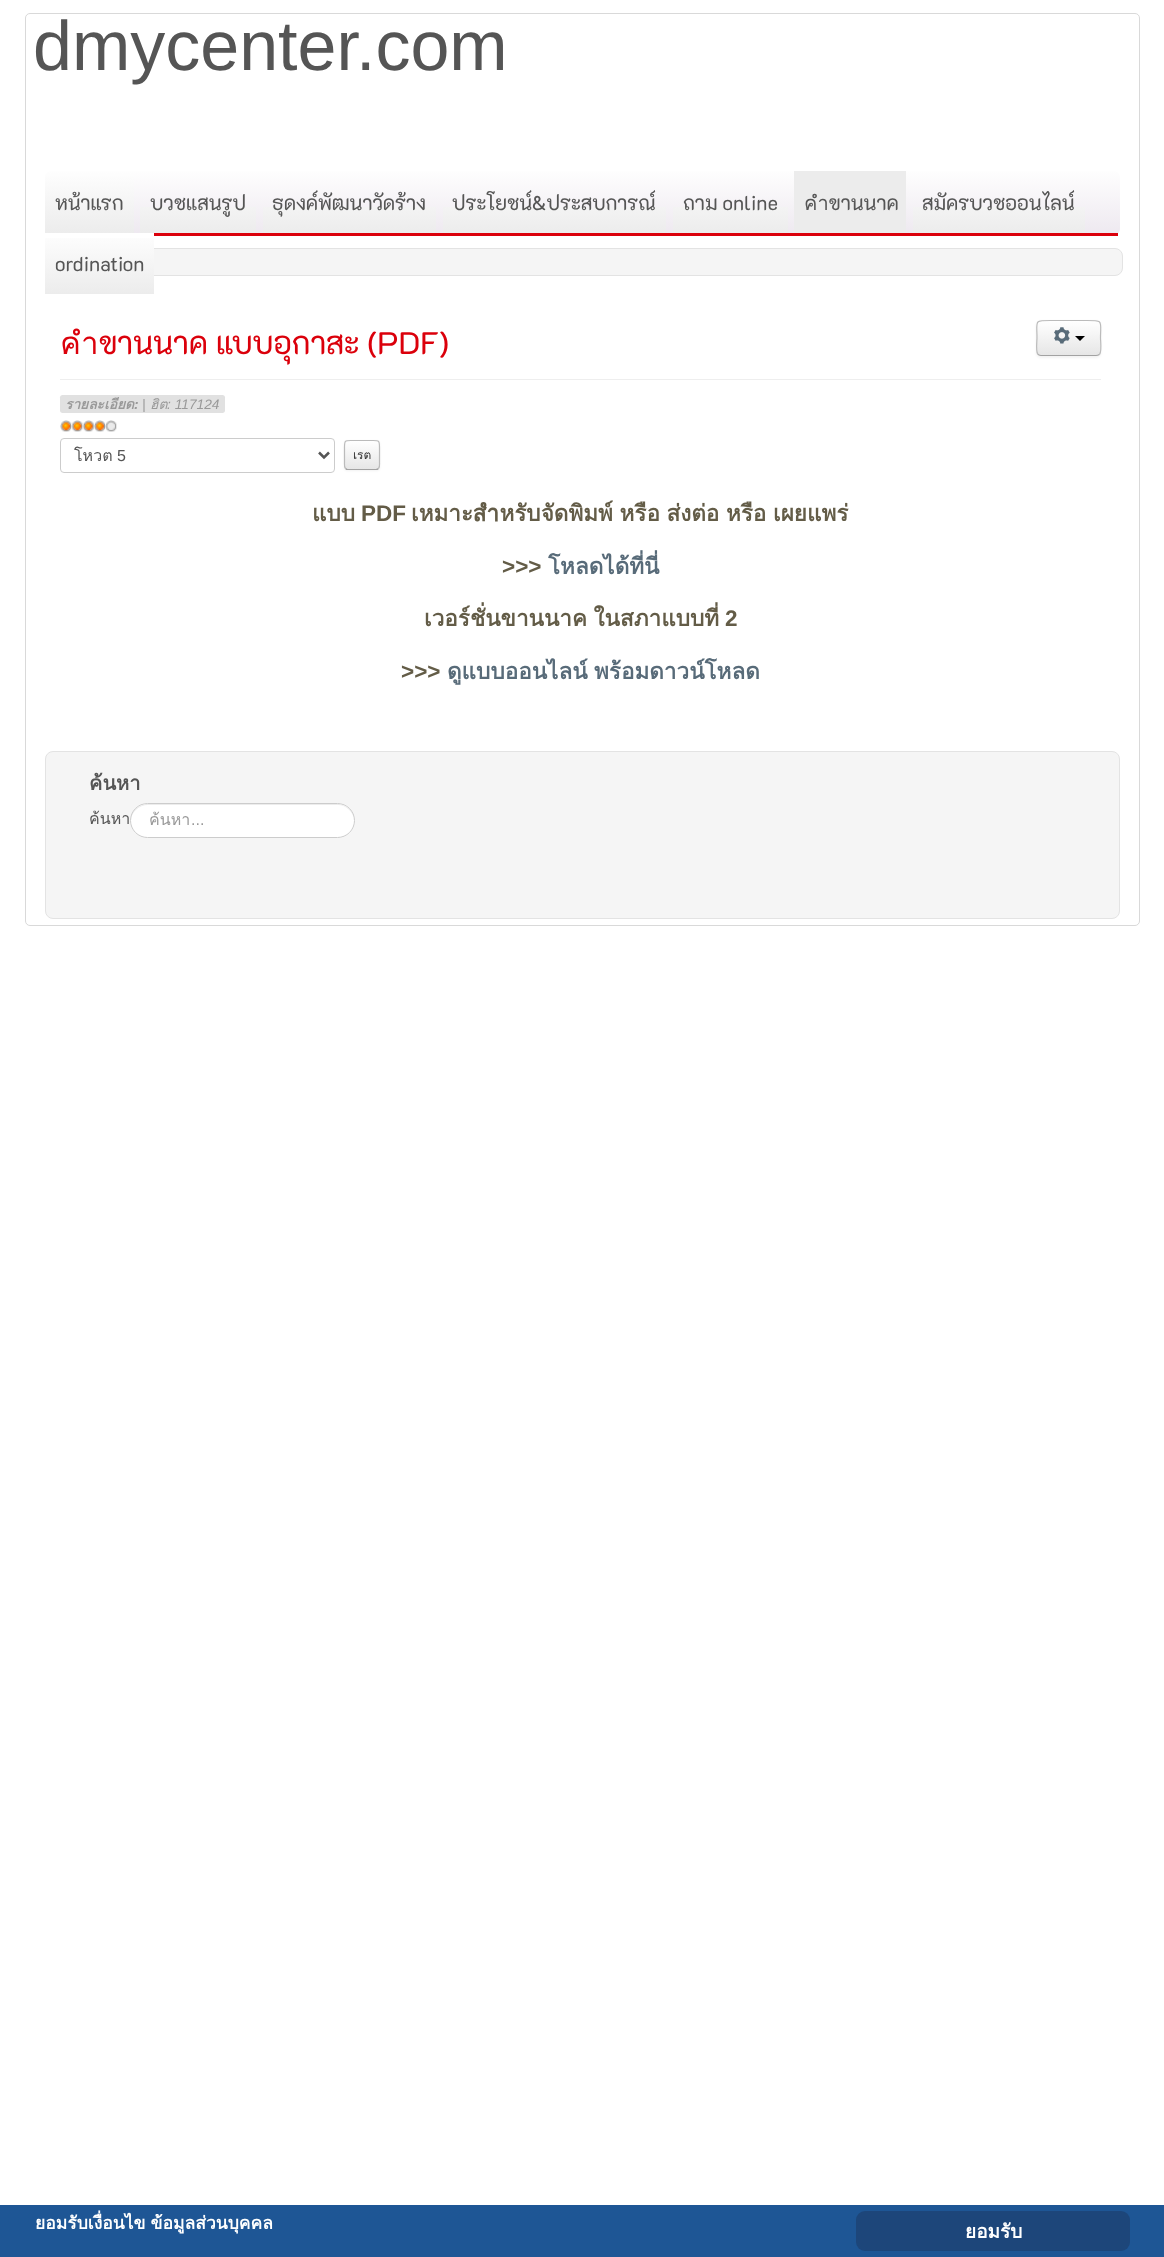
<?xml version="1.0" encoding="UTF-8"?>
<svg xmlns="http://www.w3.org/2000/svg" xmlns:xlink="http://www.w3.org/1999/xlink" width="1164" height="2257">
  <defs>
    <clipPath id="clip1"><rect x="45" y="171" width="1075" height="64" rx="6" /></clipPath>
    <linearGradient id="g1" gradientUnits="userSpaceOnUse" x1="583" y1="171" x2="583" y2="233"><stop offset="0" stop-color="#fefefe" /><stop offset="1" stop-color="#eee9f0" /></linearGradient>
    <linearGradient id="g2" gradientUnits="userSpaceOnUse" x1="89" y1="171" x2="89" y2="233"><stop offset="0" stop-color="#fefefe" /><stop offset="1" stop-color="#ececec" /></linearGradient>
    <linearGradient id="g3" gradientUnits="userSpaceOnUse" x1="198" y1="171" x2="198" y2="233"><stop offset="0" stop-color="#fefefe" /><stop offset="1" stop-color="#ececec" /></linearGradient>
    <linearGradient id="g4" gradientUnits="userSpaceOnUse" x1="349" y1="171" x2="349" y2="233"><stop offset="0" stop-color="#fefefe" /><stop offset="1" stop-color="#ececec" /></linearGradient>
    <linearGradient id="g5" gradientUnits="userSpaceOnUse" x1="554" y1="171" x2="554" y2="233"><stop offset="0" stop-color="#fefefe" /><stop offset="1" stop-color="#ececec" /></linearGradient>
    <linearGradient id="g6" gradientUnits="userSpaceOnUse" x1="730" y1="171" x2="730" y2="233"><stop offset="0" stop-color="#fefefe" /><stop offset="1" stop-color="#ececec" /></linearGradient>
    <linearGradient id="g7" gradientUnits="userSpaceOnUse" x1="999" y1="171" x2="999" y2="233"><stop offset="0" stop-color="#fefefe" /><stop offset="1" stop-color="#ececec" /></linearGradient>
    <linearGradient id="g8" gradientUnits="userSpaceOnUse" x1="99" y1="233" x2="99" y2="294"><stop offset="0" stop-color="#fefefe" /><stop offset="1" stop-color="#ececec" /></linearGradient>
    <clipPath id="clip2"><rect x="1036" y="320" width="65" height="36" rx="5" /></clipPath>
    <linearGradient id="g9" gradientUnits="userSpaceOnUse" x1="1069" y1="321" x2="1069" y2="355"><stop offset="0" stop-color="#ffffff" /><stop offset="1" stop-color="#e6e6e6" /></linearGradient>
    <clipPath id="clip3"><rect x="344" y="440" width="36" height="30" rx="4" /></clipPath>
    <linearGradient id="g10" gradientUnits="userSpaceOnUse" x1="362" y1="441" x2="362" y2="469"><stop offset="0" stop-color="#ffffff" /><stop offset="1" stop-color="#e6e6e6" /></linearGradient>
    <clipPath id="clip4"><rect x="149" y="806" width="187" height="27" /></clipPath>
  </defs>
  <rect width="100%" height="100%" fill="#ffffff" />
  <rect x="25.5" y="13.5" width="1114" height="912" rx="4.5" fill="none" stroke="#d9d9d9" />
  <g clip-path="url(#clip1)">
    <path d="M 51 171 h 1063 c 3.5 0 6 2.5 6 6 v 56 h -1075 v -56 c 0 -3.5 2.5 -6 6 -6 z" fill="url(#g1)" />
  </g>
  <rect x="154" y="233" width="964" height="3" fill="#db000b" />
  <path d="M 51 171 h 83 v 62 h -89 v -56 c 0 -3.5 2.5 -6 6 -6 z" fill="url(#g2)" />
  <rect x="140" y="207" width="116" height="26" fill="url(#g3)" />
  <rect x="263" y="207" width="173" height="26" fill="url(#g4)" />
  <rect x="443" y="207" width="223" height="26" fill="url(#g5)" />
  <rect x="673" y="207" width="115" height="26" fill="url(#g6)" />
  <rect x="794" y="171" width="112" height="62" fill="#ececec" />
  <rect x="913" y="207" width="172" height="26" fill="url(#g7)" />
  <rect x="45.5" y="248.5" width="1077" height="27" rx="7.5" fill="#f5f5f5" stroke="#e3e3e3" />
  <rect x="45" y="238" width="109" height="56" fill="url(#g8)" />
  <rect x="60" y="379" width="1041" height="1" fill="#eeeeee" />
  <rect x="1036" y="321" width="65" height="37" rx="5" fill="#000000" fill-opacity="0.05" filter="blur(1px)" />
  <rect x="1036" y="320" width="65" height="36" rx="5" fill="#f5f5f5" />
  <g clip-path="url(#clip2)">
    <rect x="1036" y="321" width="65" height="34" fill="url(#g9)" />
  </g>
  <path d="M 1099.5 354.5 c -1 0.5 -2 1 -3.5 1 h -55 c -1 0 -2 -0.5 -3 -1" fill="none" stroke="#a2a2a2" stroke-width="1.2" />
  <path d="M 1038 354.5 c -2.5 -3 -1 -13 -1 -16.5 c 0 -17.5 -3.5 -17.5 13.5 -17.5 h 36.5 c 17 0 13.5 0 13.5 17.5 c 0 3.5 1.5 13.5 -1 16.5" fill="none" stroke="#bbbbbb" stroke-width="1.2" />
  <image x="1054" y="327" width="16" height="17" xlink:href="image1.png" />
  <path d="M 1075 336 h 10 l -5 5 z" fill="#000000" />
  <path d="M 62.5 395 h 76.5 v 18 h -76.5 c -1.5 0 -2.5 -1 -2.5 -2.5 v -13 c 0 -1.5 1 -2.5 2.5 -2.5 z" fill="#e1e1e1" />
  <path d="M 139 395 h 83.5 c 1.5 0 2.5 1 2.5 2.5 v 13 c 0 1.5 -1 2.5 -2.5 2.5 h -83.5 z" fill="#e1e1e1" />
  <image x="60" y="420" width="12" height="12" xlink:href="image2.png" />
  <image x="71" y="420" width="12" height="12" xlink:href="image3.png" />
  <image x="82" y="420" width="12" height="12" xlink:href="image4.png" />
  <image x="93" y="420" width="12" height="12" xlink:href="image5.png" />
  <image x="105" y="420" width="12" height="12" xlink:href="image6.png" />
  <rect x="60.5" y="438.5" width="274" height="34" rx="3.5" fill="none" stroke="#cccccc" />
  <path d="M 319 452.5 l 5 5 l 5 -5" fill="none" stroke="#555555" stroke-width="2.5" />
  <rect x="344" y="441" width="36" height="30" rx="4" fill="#000000" fill-opacity="0.05" filter="blur(1px)" />
  <g clip-path="url(#clip3)">
    <rect x="344" y="441" width="36" height="28" fill="url(#g10)" />
  </g>
  <path d="M 378.5 468.5 c -0.5 0.5 -1.5 1 -2.5 1 h -28.5 c -1 0 -1.5 -0.5 -2 -1" fill="none" stroke="#a2a2a2" stroke-width="1.2" />
  <path d="M 345.5 468.5 c -1.5 -1.5 -1 -4.5 -1 -6 v -15 c 0 -7.5 0.5 -7 8 -7 h 19 c 7.5 0 8 -0.5 8 7 v 15 c 0 1.5 0.5 4.5 -1 6" fill="none" stroke="#bbbbbb" stroke-width="1.2" />
  <rect x="45.5" y="751.5" width="1074" height="167" rx="7.5" fill="#f5f5f5" stroke="#e3e3e3" />
  <rect x="130" y="803" width="225" height="35" rx="17.5" fill="#ffffff" />
  <path d="M 148 805 h 190 c 8 0 16 7 16 16 c 1 -24 -37 -17 -48 -17 h -127 c -11 0 -49 -7 -48 17 c 0 -9 8 -16 17 -16 z" fill="#ececec" />
  <rect x="130.5" y="803.5" width="224" height="34" rx="17" fill="none" stroke="#cccccc" />
  <rect y="2205" width="1164" height="52" fill="#1e5695" />
  <rect x="856" y="2211" width="274" height="40" rx="9" fill="#1d467a" />
  <text x="33" y="70" style="font-family: Liberation Sans; font-size: 70px; fill: #555555">dmycenter.com</text>
  <text x="55" y="210" style="font-family: 'K2D'; font-size: 20px; fill: #555555">หน้าแรก</text>
  <text x="150" y="210" style="font-family: 'K2D'; font-size: 20px; fill: #555555">บวชแสนรูป</text>
  <text x="272" y="210" style="font-family: 'K2D'; font-size: 20px; fill: #555555">ธุดงค์พัฒนาวัดร้าง</text>
  <text x="452" y="210" style="font-family: 'K2D'; font-size: 20px; fill: #555555">ประโยชน์&amp;ประสบการณ์</text>
  <text x="683" y="210" style="font-family: 'K2D'; font-size: 20px; fill: #555555">ถาม online</text>
  <text x="804" y="210" style="font-family: 'K2D'; font-size: 20px; fill: #555555">คำขานนาค</text>
  <text x="922" y="210" style="font-family: 'K2D'; font-size: 20px; fill: #555555">สมัครบวชออนไลน์</text>
  <text x="55" y="271" style="font-family: 'K2D'; font-size: 20px; fill: #555555">ordination</text>
  <text x="60" y="354" style="font-family: 'K2D'; font-size: 31.25px; fill: #db000b">คำขานนาค แบบอุกาสะ (PDF)</text>
  <text x="65" y="409" style="font-family: Loma; font-size: 13.75px; font-weight: bold; font-style: italic; fill: #999999">รายละเอียด</text>
  <text x="134" y="409" style="font-family: Liberation Sans; font-size: 13.75px; font-weight: bold; font-style: italic; fill: #999999">:</text>
  <text x="142" y="409" style="font-family: Liberation Sans; font-size: 13.75px; font-style: italic; fill: #999999">|</text>
  <text x="150" y="409" style="font-family: Loma; font-size: 13.75px; font-style: italic; fill: #999999">ฮิต</text>
  <text x="167" y="409" style="font-family: Liberation Sans; font-size: 13.75px; font-style: italic; fill: #999999">: 117124</text>
  <text x="74" y="461" style="font-family: Loma; font-size: 16px; fill: #555555">โหวต</text>
  <text x="117" y="461" style="font-family: Liberation Sans; font-size: 16px; fill: #555555">5</text>
  <text x="353" y="459" style="font-family: Loma; font-size: 12px; fill: #333333">เรต</text>
  <text x="312" y="521" style="font-family: Loma; font-size: 22.5px; font-weight: bold; fill: #635c47">แบบ</text>
  <text x="361" y="521" style="font-family: Liberation Sans; font-size: 22.5px; font-weight: bold; fill: #635c47">PDF</text>
  <text x="411" y="521" word-spacing="-1" style="font-family: Loma; font-size: 22.5px; font-weight: bold; fill: #635c47">เหมาะสำหรับจัดพิมพ์ หรือ ส่งต่อ หรือ เผยแพร่</text>
  <text x="502" y="574" style="font-family: Liberation Sans; font-size: 22.5px; font-weight: bold; fill: #635c47">&gt;&gt;&gt;</text>
  <text x="548" y="574" style="font-family: Loma; font-size: 22.5px; font-weight: bold; fill: #586b79">โหลดได้ที่นี่</text>
  <text x="424" y="626" word-spacing="-1" style="font-family: Loma; font-size: 22.5px; font-weight: bold; fill: #635c47">เวอร์ชั่นขานนาค ในสภาแบบที่</text>
  <text x="725" y="626" style="font-family: Liberation Sans; font-size: 22.5px; font-weight: bold; fill: #635c47">2</text>
  <text x="401" y="679" style="font-family: Liberation Sans; font-size: 22.5px; font-weight: bold; fill: #635c47">&gt;&gt;&gt;</text>
  <text x="447" y="679" style="font-family: Loma; font-size: 22.5px; font-weight: bold; fill: #586b79">ดูแบบออนไลน์</text>
  <text x="594" y="679" style="font-family: Loma; font-size: 22.5px; font-weight: bold; fill: #586b79">พร้อมดาวน์โหลด</text>
  <text x="89" y="790" style="font-family: Loma; font-size: 20px; font-weight: bold; fill: #555555">ค้นหา</text>
  <text x="89" y="824" style="font-family: Loma; font-size: 16px; fill: #555555">ค้นหา</text>
  <g clip-path="url(#clip4)">
    <text x="149" y="825" style="font-family: Loma; font-size: 16px; fill: #999999">ค้นหา</text>
  </g>
  <text x="191" y="825" style="font-family: Liberation Sans; font-size: 16px; fill: #999999">...</text>
  <text x="35" y="2229" word-spacing="-1" style="font-family: Loma; font-size: 17.5px; font-weight: bold; fill: #ffffff">ยอมรับเงื่อนไข ข้อมูลส่วนบุคคล</text>
  <text x="965" y="2238" style="font-family: Loma; font-size: 19px; font-weight: bold; fill: #ffffff">ยอมรับ</text>
</svg>
